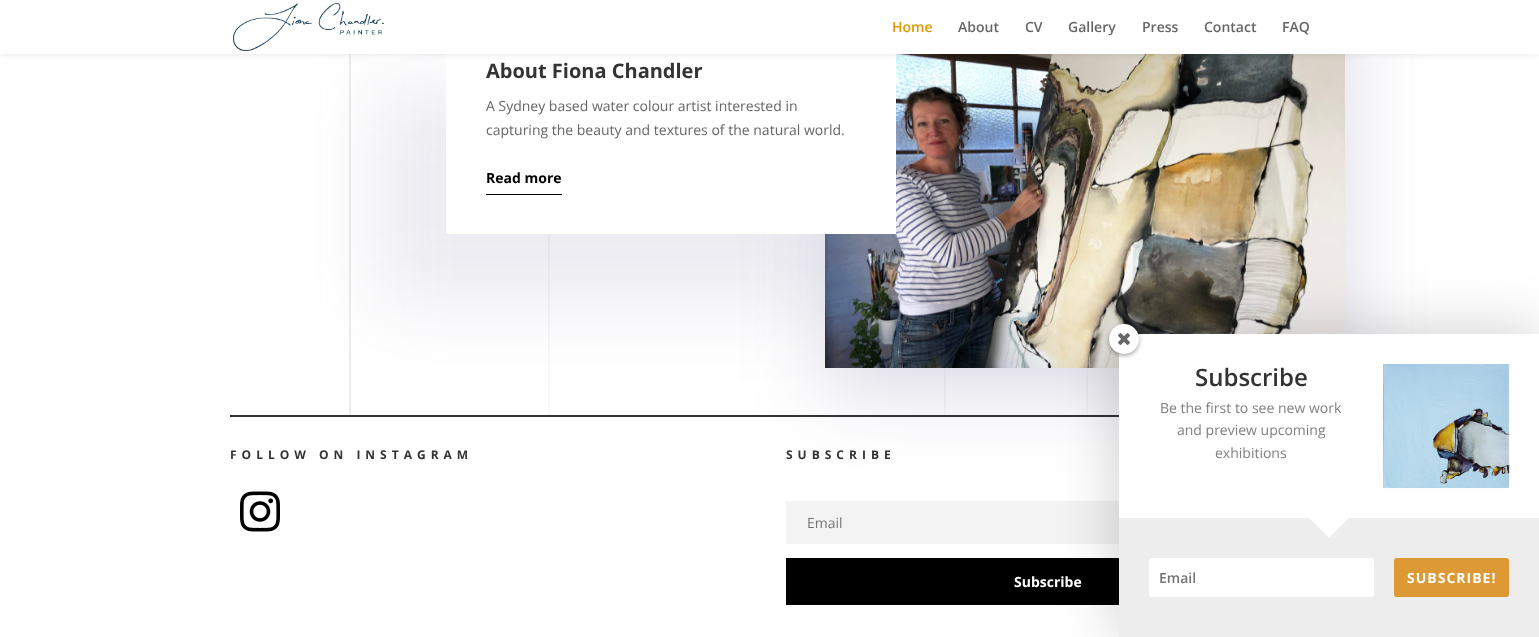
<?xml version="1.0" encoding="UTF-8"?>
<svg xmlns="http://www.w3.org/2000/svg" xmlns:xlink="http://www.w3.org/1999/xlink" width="1539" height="637">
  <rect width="100%" height="100%" fill="#ffffff" />
  <image x="349" y="54" width="770" height="361" xlink:href="image2.png" />
  <rect x="230" y="415" width="889" height="2" fill="#333333" />
  <rect x="825" y="-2" width="520" height="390" fill="#433a7a" fill-opacity="0.2" filter="blur(40px)" />
  <image x="825" y="54" width="520" height="314" xlink:href="image3.png" />
  <rect x="376" y="88" width="450" height="216" fill="#433a7a" fill-opacity="0.1" filter="blur(40px)" />
  <rect x="446" y="54" width="450" height="180" fill="#ffffff" />
  <rect width="1539" height="54" fill="#000000" fill-opacity="0.1" filter="blur(3.5px)" />
  <rect width="1539" height="54" fill="#ffffff" />
  <image x="233" y="3" width="151" height="48" xlink:href="image1.png" />
  <rect x="486" y="194" width="76" height="1" fill="#000000" />
  <image x="240" y="491" width="40" height="41" xlink:href="image4.png" />
  <rect x="786" y="501" width="333" height="43" fill="#f3f3f4" />
  <rect x="786" y="558" width="333" height="47" fill="#000000" />
  <rect x="1119" y="334" width="420" height="303" fill="#000000" fill-opacity="0.2" filter="blur(30px)" />
  <rect x="1119" y="334" width="420" height="184" fill="#ffffff" />
  <rect x="1109" y="326" width="30" height="30" rx="15" fill="#000000" fill-opacity="0.34" filter="blur(2px)" />
  <circle cx="1124" cy="339" r="15" fill="#ffffff" />
  <image x="1118" y="333" width="12" height="12" xlink:href="image5.png" />
  <image x="1383" y="364" width="127" height="125" xlink:href="image6.png" />
  <rect x="1119" y="518" width="420" height="119" fill="#ededed" />
  <path d="M 1309 518 h 40 l -20 20 z" fill="#ffffff" />
  <rect x="1149" y="558" width="225" height="39" rx="3" fill="#ffffff" />
  <rect x="1394" y="558" width="115" height="39" rx="3" fill="#dd9933" />
  <text x="892" y="32" style="font-family: Open Sans; font-size: 14px; font-weight: 600; fill: #e09900">Home</text>
  <text x="958" y="32" style="font-family: Open Sans; font-size: 14px; font-weight: 600; fill: #666666">About</text>
  <text x="1025" y="32" style="font-family: Open Sans; font-size: 14px; font-weight: 600; fill: #666666">CV</text>
  <text x="1068" y="32" style="font-family: Open Sans; font-size: 14px; font-weight: 600; fill: #666666">Gallery</text>
  <text x="1142" y="32" style="font-family: Open Sans; font-size: 14px; font-weight: 600; fill: #666666">Press</text>
  <text x="1204" y="32" style="font-family: Open Sans; font-size: 14px; font-weight: 600; fill: #666666">Contact</text>
  <text x="1282" y="32" style="font-family: Open Sans; font-size: 14px; font-weight: 600; fill: #666666">FAQ</text>
  <text x="486" y="78" style="font-family: Open Sans; font-size: 20px; font-weight: bold; fill: #333333">About Fiona Chandler</text>
  <text x="486" y="111" style="font-family: Open Sans; font-size: 14px; fill: #666666">A Sydney based water colour artist interested in</text>
  <text x="486" y="135" style="font-family: Open Sans; font-size: 14px; fill: #666666">capturing the beauty and textures of the natural world.</text>
  <text x="486" y="183" style="font-family: Open Sans; font-size: 14px; font-weight: bold; fill: #000000">Read more</text>
  <text x="230" y="459" style="font-family: Open Sans; font-size: 12px; font-weight: bold; letter-spacing: 5px; fill: #333333">FOLLOW ON INSTAGRAM</text>
  <text x="786" y="459" style="font-family: Open Sans; font-size: 12px; font-weight: bold; letter-spacing: 5px; fill: #333333">SUBSCRIBE</text>
  <text x="807" y="528" style="font-family: Open Sans; font-size: 14px; fill: #757575">Email</text>
  <text x="1014" y="587" style="font-family: Open Sans; font-size: 14px; font-weight: bold; fill: #ffffff">Subscribe</text>
  <text x="1195" y="386" style="font-family: Open Sans; font-size: 24px; font-weight: 600; fill: #333333">Subscribe</text>
  <text x="1160" y="413" style="font-family: Open Sans; font-size: 14px; fill: #808080">Be the first to see new work</text>
  <text x="1177" y="435" style="font-family: Open Sans; font-size: 14px; fill: #808080">and preview upcoming</text>
  <text x="1215" y="458" style="font-family: Open Sans; font-size: 14px; fill: #808080">exhibitions</text>
  <text x="1159" y="583" style="font-family: Open Sans; font-size: 14px; font-weight: 600; fill: #757575">Email</text>
  <text x="1407" y="583" style="font-family: Open Sans; font-size: 14px; font-weight: bold; letter-spacing: 1px; fill: #ffffff">SUBSCRIBE!</text>
</svg>
